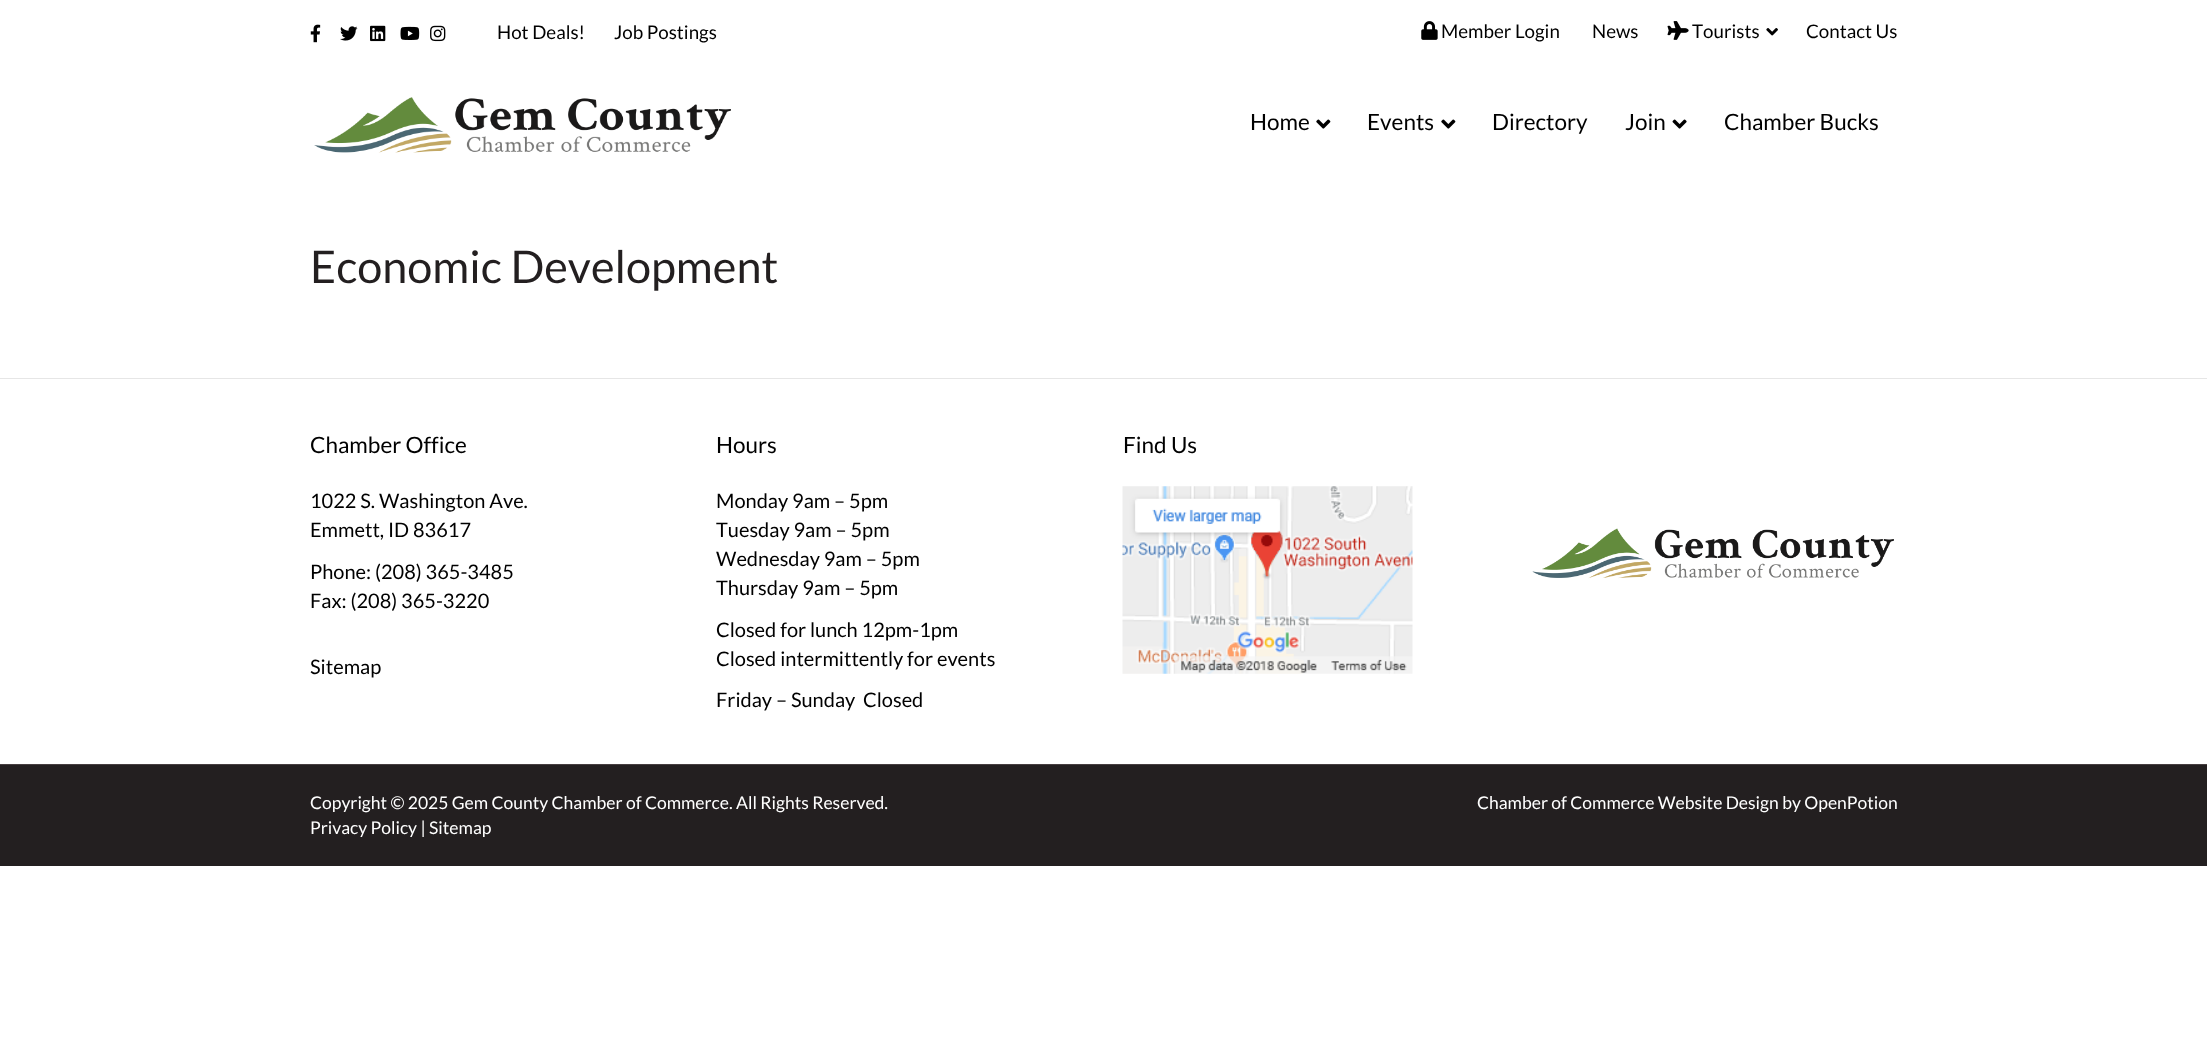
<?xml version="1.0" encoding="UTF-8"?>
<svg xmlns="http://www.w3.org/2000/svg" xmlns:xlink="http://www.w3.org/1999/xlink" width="2207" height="1048">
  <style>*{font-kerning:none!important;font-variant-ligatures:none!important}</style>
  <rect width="100%" height="100%" fill="#ffffff" />
  <image x="310" y="24" width="11" height="19" xlink:href="image1.png" />
  <image x="340" y="26" width="18" height="15" xlink:href="image2.png" />
  <image x="370" y="25" width="16" height="17" xlink:href="image3.png" />
  <image x="400" y="26" width="20" height="14" xlink:href="image4.png" />
  <image x="430" y="25" width="16" height="17" xlink:href="image5.png" />
  <image x="1421" y="21" width="17" height="19" xlink:href="image6.png" />
  <image x="1667" y="21" width="22" height="19" xlink:href="image7.png" />
  <image x="1766" y="28" width="12" height="8" xlink:href="image8.png" />
  <image x="314" y="97" width="417" height="56" xlink:href="image9.png" />
  <image x="1316" y="119" width="15" height="10" xlink:href="image10.png" />
  <image x="1441" y="119" width="15" height="10" xlink:href="image10.png" />
  <image x="1672" y="119" width="15" height="10" xlink:href="image11.png" />
  <rect y="378" width="2207" height="1" fill="#e6e6e6" />
  <image x="1122" y="486" width="291" height="188" xlink:href="image12.png" />
  <image x="1532" y="528" width="362" height="51" xlink:href="image13.png" />
  <rect y="765" width="2207" height="101" fill="#231f20" />
  <rect y="764" width="2207" height="1" fill="#463e40" />
  <text x="497" y="39" style="font-family: Lato; font-size: 18.75px; fill: #000000">Hot Deals!</text>
  <text x="614" y="39" style="font-family: Lato; font-size: 18.75px; fill: #000000">Job Postings</text>
  <text x="1441" y="38" style="font-family: Lato; font-size: 18.75px; fill: #000000">Member Login</text>
  <text x="1592" y="38" style="font-family: Lato; font-size: 18.75px; fill: #000000">News</text>
  <text x="1692" y="38" style="font-family: Lato; font-size: 18.75px; fill: #000000">Tourists</text>
  <text x="1806" y="38" style="font-family: Lato; font-size: 18.75px; fill: #000000">Contact Us</text>
  <text x="1250" y="130" style="font-family: Lato; font-size: 22.5px; fill: #000000">Home</text>
  <text x="1367" y="130" style="font-family: Lato; font-size: 22.5px; fill: #000000">Events</text>
  <text x="1492" y="130" style="font-family: Lato; font-size: 22.5px; fill: #000000">Directory</text>
  <text x="1625" y="130" style="font-family: Lato; font-size: 22.5px; fill: #000000">Join</text>
  <text x="1724" y="130" style="font-family: Lato; font-size: 22.5px; fill: #000000">Chamber Bucks</text>
  <text x="310" y="283" style="font-family: Lato; font-size: 45px; fill: #231f20">Economic Development</text>
  <text x="310" y="453" style="font-family: Lato; font-size: 22.5px; fill: #000000">Chamber Office</text>
  <text x="310" y="508" style="font-family: Lato; font-size: 20px; fill: #000000">1022 S. Washington Ave.</text>
  <text x="310" y="537" style="font-family: Lato; font-size: 20px; fill: #000000">Emmett, ID 83617</text>
  <text x="310" y="579" style="font-family: Lato; font-size: 20px; fill: #000000">Phone: (208) 365-3485</text>
  <text x="310" y="608" style="font-family: Lato; font-size: 20px; fill: #000000">Fax: (208) 365-3220</text>
  <text x="310" y="674" style="font-family: Lato; font-size: 20px; fill: #000000">Sitemap</text>
  <text x="716" y="453" style="font-family: Lato; font-size: 22.5px; fill: #000000">Hours</text>
  <text x="716" y="508" style="font-family: Lato; font-size: 20px; fill: #000000">Monday 9am – 5pm</text>
  <text x="716" y="537" style="font-family: Lato; font-size: 20px; fill: #000000">Tuesday 9am – 5pm</text>
  <text x="716" y="566" style="font-family: Lato; font-size: 20px; fill: #000000">Wednesday 9am – 5pm</text>
  <text x="716" y="595" style="font-family: Lato; font-size: 20px; fill: #000000">Thursday 9am – 5pm</text>
  <text x="716" y="637" style="font-family: Lato; font-size: 20px; fill: #000000">Closed for lunch 12pm-1pm</text>
  <text x="716" y="666" style="font-family: Lato; font-size: 20px; fill: #000000">Closed intermittently for events</text>
  <text x="716" y="707" style="font-family: Lato; font-size: 20px; fill: #000000" xml:space="preserve">Friday – Sunday  Closed</text>
  <text x="1123" y="453" style="font-family: Lato; font-size: 22.5px; fill: #000000">Find Us</text>
  <text x="310" y="809" style="font-family: Lato; font-size: 17.5px; fill: #ffffff">Copyright © 2025 Gem County Chamber of Commerce. All Rights Reserved.</text>
  <text x="310" y="834" style="font-family: Lato; font-size: 17.5px; fill: #ffffff">Privacy Policy | Sitemap</text>
  <text x="1477" y="809" style="font-family: Lato; font-size: 17.5px; fill: #ffffff">Chamber of Commerce Website Design by OpenPotion</text>
</svg>
